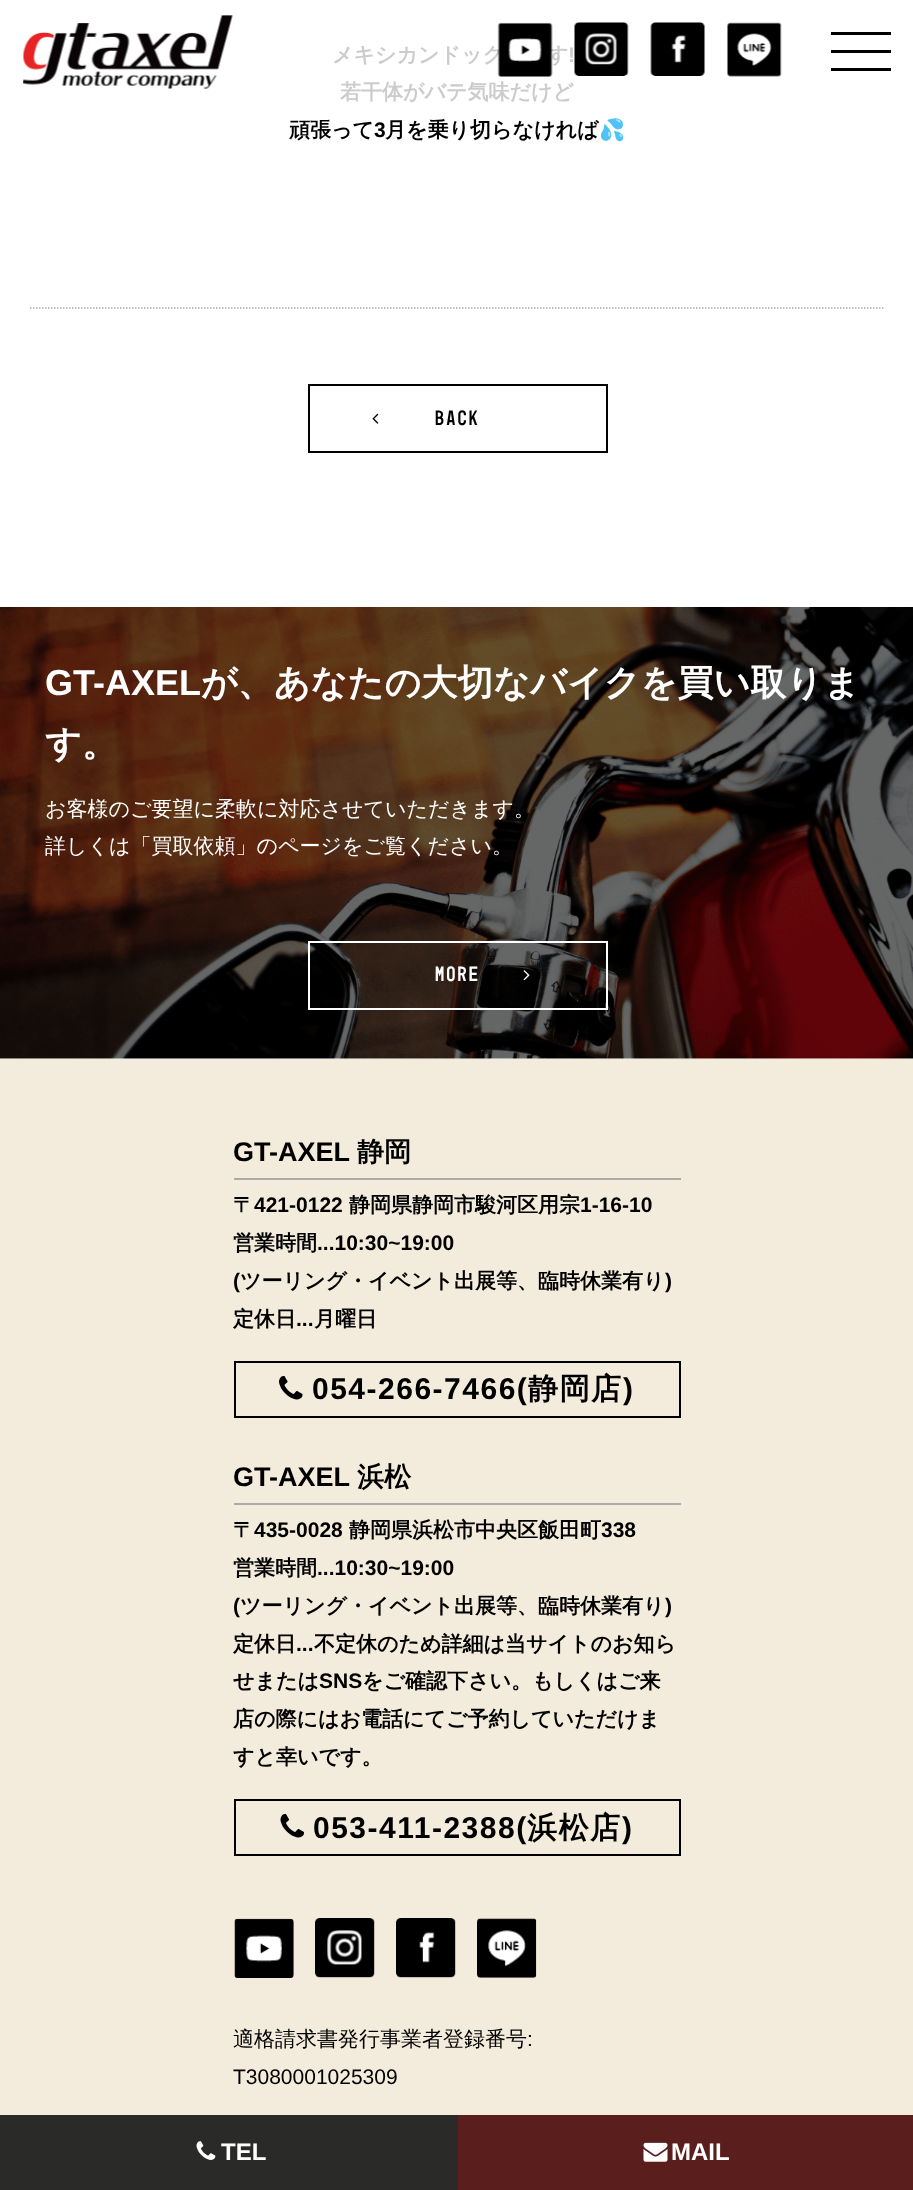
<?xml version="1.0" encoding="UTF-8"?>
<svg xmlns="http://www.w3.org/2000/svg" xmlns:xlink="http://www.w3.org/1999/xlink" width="913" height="2190">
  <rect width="100%" height="100%" fill="#ffffff" />
  <image x="23" y="15" width="210" height="74" xlink:href="image1.png" />
  <image x="650" y="22" width="55" height="54" xlink:href="image4.png" />
  <image x="727" y="22" width="55" height="55" xlink:href="image5.png" />
  <rect x="831" y="32" width="60" height="3" fill="#000000" />
  <rect x="831" y="50" width="60" height="3" fill="#000000" />
  <rect x="831" y="68" width="60" height="3" fill="#000000" />
  <path d="M 30 308 h 853.5" fill="none" stroke="#aaaaaa" stroke-width="1.5" stroke-dasharray="1.5 1.5" />
  <rect x="309" y="385" width="298" height="67" fill="none" stroke="#000000" stroke-width="2" />
  <image x="372" y="413" width="7" height="11" xlink:href="image6.png" />
  <image x="0" y="607" width="913" height="452" xlink:href="image7.png" />
  <rect x="309" y="942" width="298" height="67" fill="none" stroke="#ffffff" stroke-width="2" />
  <image x="523" y="970" width="7" height="11" xlink:href="image8.png" />
  <rect y="1059" width="913" height="1056" fill="#f3ebdb" />
  <rect x="234" y="1178" width="447" height="2" fill="#aaaaaa" />
  <rect x="235" y="1362" width="445" height="55" fill="none" stroke="#000000" stroke-width="2" />
  <image x="279" y="1376" width="24" height="24" xlink:href="image9.png" />
  <rect x="234" y="1503" width="447" height="2" fill="#aaaaaa" />
  <rect x="235" y="1800" width="445" height="55" fill="none" stroke="#000000" stroke-width="2" />
  <image x="280" y="1813" width="25" height="25" xlink:href="image10.png" />
  <image x="234" y="1918" width="60" height="60" xlink:href="image11.png" />
  <image x="315" y="1918" width="60" height="60" xlink:href="image12.png" />
  <image x="396" y="1918" width="60" height="60" xlink:href="image13.png" />
  <image x="477" y="1918" width="60" height="60" xlink:href="image14.png" />
  <rect y="2115" width="458" height="75" fill="#2a2a28" />
  <image x="196" y="2141" width="20" height="19" xlink:href="image15.png" />
  <rect x="458" y="2115" width="455" height="75" fill="#5a1f1d" />
  <image x="643" y="2142" width="25" height="20" xlink:href="image16.png" />
  <text x="332" y="62" style="font-family: WenQuanYi Zen Hei; font-size: 21px; font-weight: bold; fill: #cccccc">メキシカンドック</text>
  <text x="547" y="62" style="font-family: WenQuanYi Zen Hei; font-size: 21px; font-weight: bold; fill: #cccccc">す</text>
  <image x="497" y="22" width="56" height="55" xlink:href="image2.png" />
  <text x="568" y="62" style="font-family: Liberation Sans; font-size: 21px; font-weight: bold; fill: #cccccc">‼</text>
  <image x="574" y="22" width="55" height="54" xlink:href="image3.png" />
  <text x="340" y="99" style="font-family: WenQuanYi Zen Hei; font-size: 21px; font-weight: bold; fill: #cccccc">若干体がバテ気味だけど</text>
  <text x="289" y="137" style="font-family: WenQuanYi Zen Hei; font-size: 21px; font-weight: bold; fill: #000000">頑張って</text>
  <text x="374" y="137" style="font-family: Liberation Sans; font-size: 21px; font-weight: bold; fill: #000000">3</text>
  <text x="385" y="137" style="font-family: WenQuanYi Zen Hei; font-size: 21px; font-weight: bold; fill: #000000">月を乗り切らなければ</text>
  <text x="599" y="137" style="font-family: Noto Color Emoji; font-size: 21px; font-weight: bold; fill: #000000">💦</text>
  <text x="435" y="425" style="font-family: 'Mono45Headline'; font-size: 21px; letter-spacing: 2px; fill: #000000">BACK</text>
  <text x="45" y="695" style="font-family: Liberation Sans; font-size: 36px; font-weight: bold; fill: #ffffff">GT-AXEL</text>
  <text x="201" y="695" style="font-family: WenQuanYi Zen Hei; font-size: 36px; font-weight: bold; fill: #ffffff">が、あなたの大切なバイクを買い取りま</text>
  <text x="45" y="756" style="font-family: WenQuanYi Zen Hei; font-size: 36px; font-weight: bold; fill: #ffffff">す。</text>
  <text x="45" y="816" style="font-family: WenQuanYi Zen Hei; font-size: 21px; font-weight: 500; fill: #ffffff">お客様のご要望に柔軟に対応させていただきます。</text>
  <text x="45" y="853" style="font-family: WenQuanYi Zen Hei; font-size: 21px; font-weight: 500; fill: #ffffff">詳しくは「買取依頼」のページをご覧ください。</text>
  <text x="435" y="981" style="font-family: 'Mono45Headline'; font-size: 21px; letter-spacing: 2px; fill: #ffffff">MORE</text>
  <text x="233" y="1161" style="font-family: Liberation Sans; font-size: 27px; font-weight: bold; fill: #000000">GT-AXEL</text>
  <text x="357" y="1161" style="font-family: WenQuanYi Zen Hei; font-size: 27px; font-weight: bold; fill: #000000">静岡</text>
  <text x="233" y="1212" style="font-family: WenQuanYi Zen Hei; font-size: 21px; font-weight: bold; fill: #000000">〒</text>
  <text x="254" y="1212" style="font-family: Liberation Sans; font-size: 21px; font-weight: bold; fill: #000000">421-0122</text>
  <text x="349" y="1212" style="font-family: WenQuanYi Zen Hei; font-size: 21px; font-weight: bold; fill: #000000">静岡県静岡市駿河区用宗</text>
  <text x="580" y="1212" style="font-family: Liberation Sans; font-size: 21px; font-weight: bold; fill: #000000">1-16-10</text>
  <text x="233" y="1250" style="font-family: WenQuanYi Zen Hei; font-size: 21px; font-weight: bold; fill: #000000">営業時間</text>
  <text x="317" y="1250" style="font-family: Liberation Sans; font-size: 21px; font-weight: bold; fill: #000000">...10:30~19:00</text>
  <text x="233" y="1288" style="font-family: Liberation Sans; font-size: 21px; font-weight: bold; fill: #000000">(</text>
  <text x="240" y="1288" style="font-family: WenQuanYi Zen Hei; font-size: 21px; font-weight: bold; fill: #000000">ツーリング・イベント出展等、臨時休業有り</text>
  <text x="665" y="1288" style="font-family: Liberation Sans; font-size: 21px; font-weight: bold; fill: #000000">)</text>
  <text x="233" y="1326" style="font-family: WenQuanYi Zen Hei; font-size: 21px; font-weight: bold; fill: #000000">定休日</text>
  <text x="296" y="1326" style="font-family: Liberation Sans; font-size: 21px; font-weight: bold; fill: #000000">...</text>
  <text x="314" y="1326" style="font-family: WenQuanYi Zen Hei; font-size: 21px; font-weight: bold; fill: #000000">月曜日</text>
  <text x="312" y="1399" style="font-family: Liberation Sans; font-size: 30px; font-weight: bold; letter-spacing: 1.5px; fill: #000000">054-266-7466(</text>
  <text x="528" y="1399" style="font-family: WenQuanYi Zen Hei; font-size: 30px; font-weight: bold; letter-spacing: 1.5px; fill: #000000">静岡店</text>
  <text x="623" y="1399" style="font-family: Liberation Sans; font-size: 30px; font-weight: bold; letter-spacing: 1.5px; fill: #000000">)</text>
  <text x="233" y="1486" style="font-family: Liberation Sans; font-size: 27px; font-weight: bold; fill: #000000">GT-AXEL</text>
  <text x="357" y="1486" style="font-family: WenQuanYi Zen Hei; font-size: 27px; font-weight: bold; fill: #000000">浜松</text>
  <text x="233" y="1537" style="font-family: WenQuanYi Zen Hei; font-size: 21px; font-weight: bold; fill: #000000">〒</text>
  <text x="254" y="1537" style="font-family: Liberation Sans; font-size: 21px; font-weight: bold; fill: #000000">435-0028</text>
  <text x="349" y="1537" style="font-family: WenQuanYi Zen Hei; font-size: 21px; font-weight: bold; fill: #000000">静岡県浜松市中央区飯田町</text>
  <text x="601" y="1537" style="font-family: Liberation Sans; font-size: 21px; font-weight: bold; fill: #000000">338</text>
  <text x="233" y="1575" style="font-family: WenQuanYi Zen Hei; font-size: 21px; font-weight: bold; fill: #000000">営業時間</text>
  <text x="317" y="1575" style="font-family: Liberation Sans; font-size: 21px; font-weight: bold; fill: #000000">...10:30~19:00</text>
  <text x="233" y="1613" style="font-family: Liberation Sans; font-size: 21px; font-weight: bold; fill: #000000">(</text>
  <text x="240" y="1613" style="font-family: WenQuanYi Zen Hei; font-size: 21px; font-weight: bold; fill: #000000">ツーリング・イベント出展等、臨時休業有り</text>
  <text x="665" y="1613" style="font-family: Liberation Sans; font-size: 21px; font-weight: bold; fill: #000000">)</text>
  <text x="233" y="1651" style="font-family: WenQuanYi Zen Hei; font-size: 21px; font-weight: bold; fill: #000000">定休日</text>
  <text x="296" y="1651" style="font-family: Liberation Sans; font-size: 21px; font-weight: bold; fill: #000000">...</text>
  <text x="314" y="1651" style="font-family: WenQuanYi Zen Hei; font-size: 21px; font-weight: bold; fill: #000000">不定休のため詳細は当サイトのお知ら</text>
  <text x="233" y="1688" style="font-family: WenQuanYi Zen Hei; font-size: 21px; font-weight: bold; fill: #000000">せまたは</text>
  <text x="319" y="1688" style="font-family: Liberation Sans; font-size: 21px; font-weight: bold; fill: #000000">SNS</text>
  <text x="362" y="1688" style="font-family: WenQuanYi Zen Hei; font-size: 21px; font-weight: bold; fill: #000000">をご確認下さい。もしくはご来</text>
  <text x="233" y="1726" style="font-family: WenQuanYi Zen Hei; font-size: 21px; font-weight: bold; fill: #000000">店の際にはお電話にてご予約していただけま</text>
  <text x="233" y="1764" style="font-family: WenQuanYi Zen Hei; font-size: 21px; font-weight: bold; fill: #000000">すと幸いです。</text>
  <text x="313" y="1838" style="font-family: Liberation Sans; font-size: 30px; font-weight: bold; letter-spacing: 1.5px; fill: #000000">053-411-2388(</text>
  <text x="527" y="1838" style="font-family: WenQuanYi Zen Hei; font-size: 30px; font-weight: bold; letter-spacing: 1.5px; fill: #000000">浜松店</text>
  <text x="622" y="1838" style="font-family: Liberation Sans; font-size: 30px; font-weight: bold; letter-spacing: 1.5px; fill: #000000">)</text>
  <text x="233" y="2046" style="font-family: WenQuanYi Zen Hei; font-size: 21px; font-weight: 500; fill: #000000">適格請求書発行事業者登録番号</text>
  <text x="527" y="2046" style="font-family: Liberation Sans; font-size: 21px; fill: #000000">:</text>
  <text x="233" y="2084" style="font-family: Liberation Sans; font-size: 21px; fill: #000000">T3080001025309</text>
  <text x="221" y="2160" style="font-family: Liberation Sans; font-size: 24px; font-weight: bold; fill: #ffffff">TEL</text>
  <text x="671" y="2160" style="font-family: Liberation Sans; font-size: 24px; font-weight: bold; fill: #ffffff">MAIL</text>
</svg>
